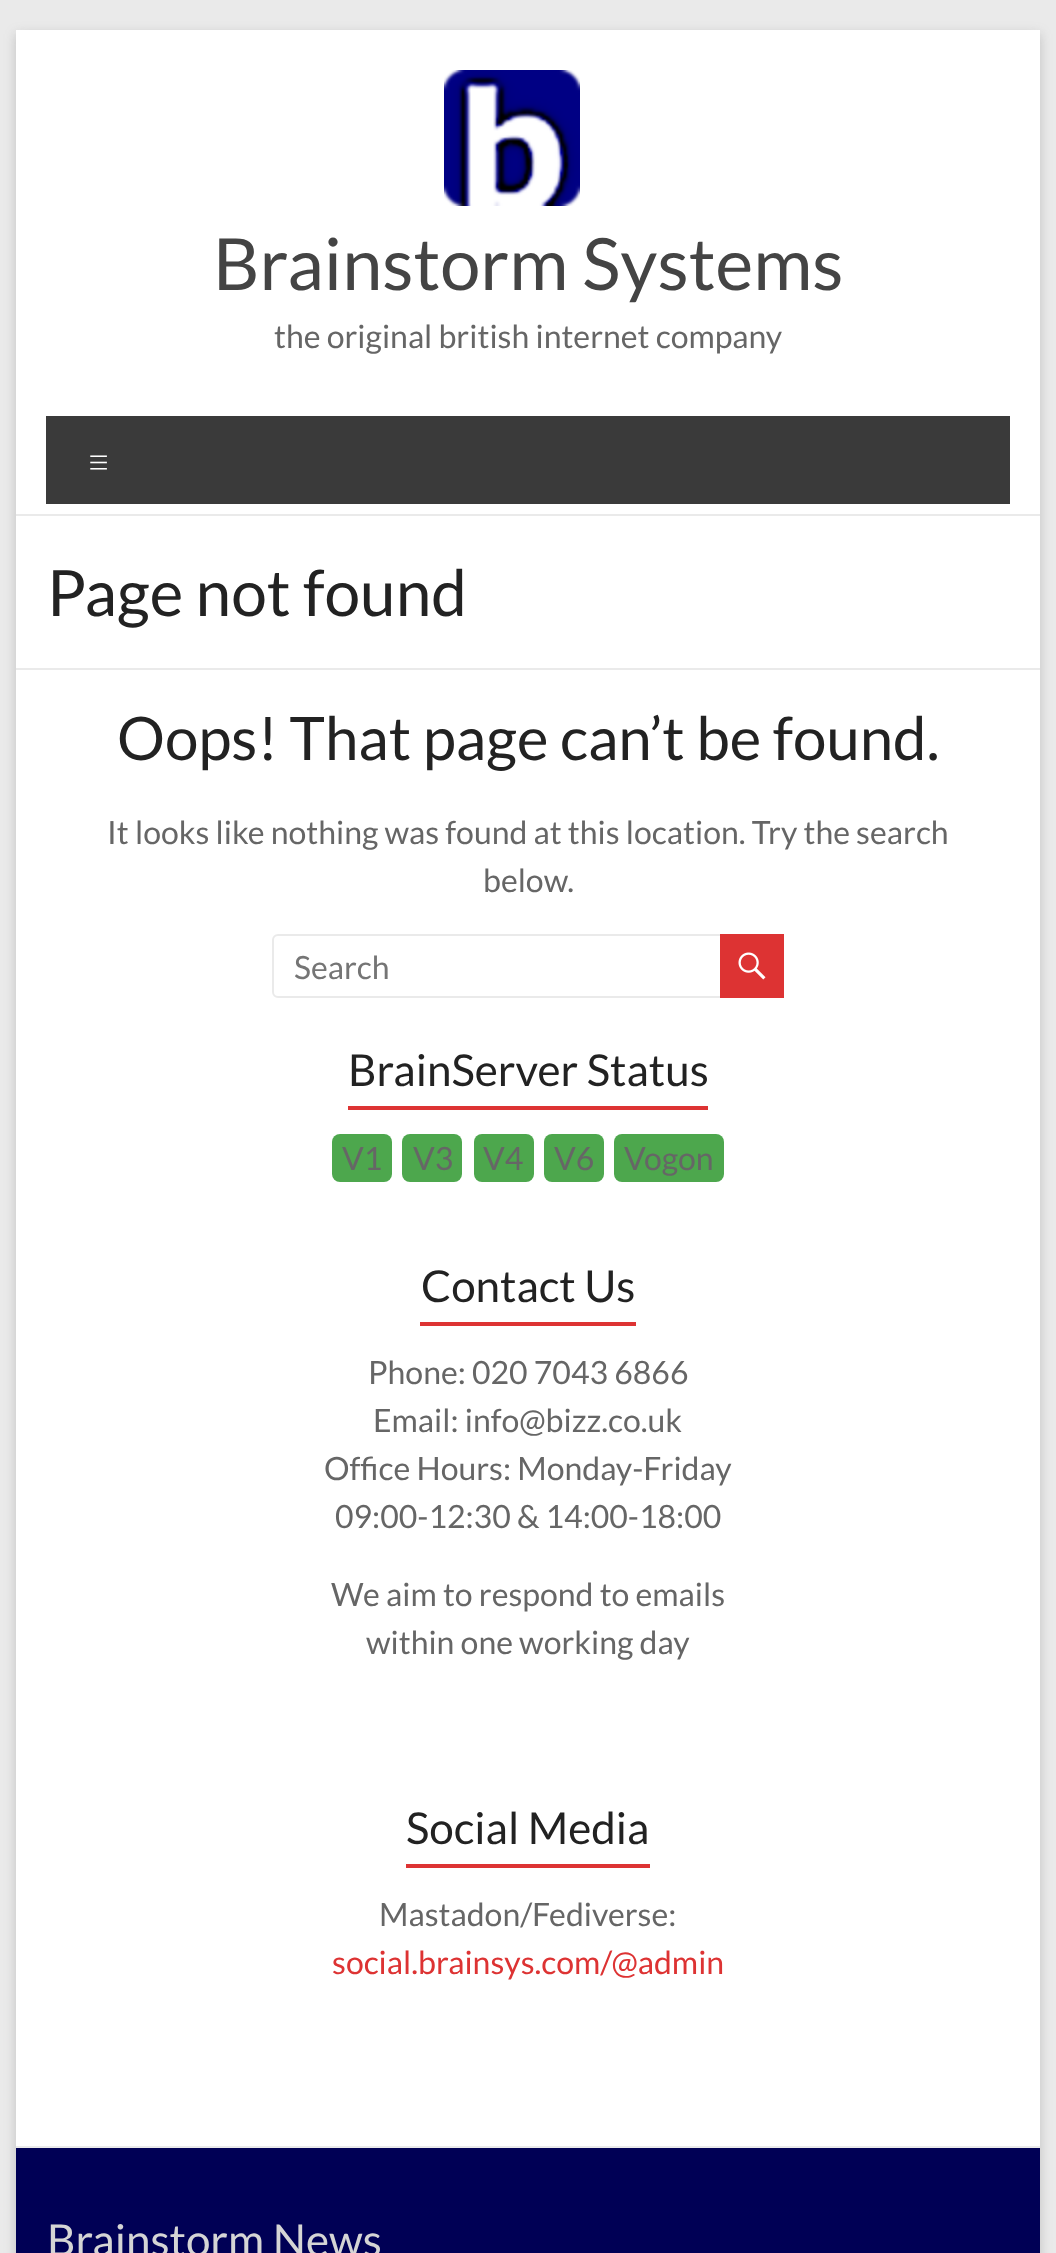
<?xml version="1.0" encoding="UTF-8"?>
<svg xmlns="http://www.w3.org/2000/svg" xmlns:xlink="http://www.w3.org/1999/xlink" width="1056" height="2253">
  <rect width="100%" height="100%" fill="#eaeaea" />
  <rect x="16" y="34" width="1024" height="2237" fill="#646464" fill-opacity="0.3" filter="blur(6px)" />
  <rect x="16" y="30" width="1024" height="2116" fill="#ffffff" />
  <rect x="16" y="514" width="1024" height="2" fill="#eaeaea" />
  <image x="444" y="70" width="136" height="136" xlink:href="image1.png" />
  <rect x="46" y="416" width="964" height="88" fill="#3a3a3a" />
  <rect x="16" y="668" width="1024" height="2" fill="#eaeaea" />
  <rect x="273" y="935" width="452" height="62" rx="5" fill="none" stroke="#eaeaea" stroke-width="2" />
  <rect x="720" y="934" width="64" height="64" fill="#dd3333" />
  <image x="738" y="952" width="28" height="28" xlink:href="image2.png" />
  <rect x="348" y="1106" width="360" height="4" fill="#dd3333" />
  <rect x="332" y="1134" width="60" height="48" rx="8" fill="#4da74d" />
  <rect x="402" y="1134" width="60" height="48" rx="8" fill="#4da74d" />
  <rect x="474" y="1134" width="60" height="48" rx="8" fill="#4da74d" />
  <rect x="544" y="1134" width="60" height="48" rx="8" fill="#4da74d" />
  <rect x="614" y="1134" width="110" height="48" rx="8" fill="#4da74d" />
  <rect x="420" y="1322" width="216" height="4" fill="#dd3333" />
  <rect x="406" y="1864" width="244" height="4" fill="#dd3333" />
  <rect x="16" y="2148" width="1024" height="105" fill="#000055" />
  <rect x="16" y="2146" width="1024" height="2" fill="#eaeaea" />
  <text x="213" y="290" style="font-family: Lato; font-size: 72px; fill: #444444">Brainstorm Systems</text>
  <text x="274" y="348" style="font-family: Lato; font-size: 32px; fill: #666666">the original british internet company</text>
  <text x="87" y="476" style="font-family: Lato; font-size: 40px; font-weight: 300; fill: #ffffff">≡</text>
  <text x="47" y="616" style="font-family: Lato; font-size: 64px; fill: #222222">Page not found</text>
  <text x="117" y="760" style="font-family: Lato; font-size: 60px; fill: #222222">Oops! That page can’t be found.</text>
  <text x="107" y="844" style="font-family: Lato; font-size: 32px; fill: #666666">It looks like nothing was found at this location. Try the search</text>
  <text x="483" y="892" style="font-family: Lato; font-size: 32px; fill: #666666">below.</text>
  <text x="294" y="979" style="font-family: Lato; font-size: 32px; fill: #757575">Search</text>
  <text x="348" y="1086" style="font-family: Lato; font-size: 44px; fill: #222222">BrainServer Status</text>
  <text x="342" y="1170" style="font-family: Lato; font-size: 32px; fill: #666666">V1</text>
  <text x="413" y="1170" style="font-family: Lato; font-size: 32px; fill: #666666">V3</text>
  <text x="483" y="1170" style="font-family: Lato; font-size: 32px; fill: #666666">V4</text>
  <text x="554" y="1170" style="font-family: Lato; font-size: 32px; fill: #666666">V6</text>
  <text x="624" y="1170" style="font-family: Lato; font-size: 32px; fill: #666666">Vogon</text>
  <text x="421" y="1302" style="font-family: Lato; font-size: 44px; fill: #222222">Contact Us</text>
  <text x="368" y="1384" style="font-family: Lato; font-size: 32px; fill: #666666">Phone: 020 7043 6866</text>
  <text x="373" y="1432" style="font-family: Lato; font-size: 32px; fill: #666666">Email: info@bizz.co.uk</text>
  <text x="324" y="1480" style="font-family: Lato; font-size: 32px; fill: #666666">Office Hours: Monday-Friday</text>
  <text x="335" y="1528" style="font-family: Lato; font-size: 32px; fill: #666666">09:00-12:30 &amp; 14:00-18:00</text>
  <text x="331" y="1606" style="font-family: Lato; font-size: 32px; fill: #666666">We aim to respond to emails</text>
  <text x="366" y="1654" style="font-family: Lato; font-size: 32px; fill: #666666">within one working day</text>
  <text x="406" y="1844" style="font-family: Lato; font-size: 44px; fill: #222222">Social Media</text>
  <text x="379" y="1926" style="font-family: Lato; font-size: 32px; fill: #666666">Mastadon/Fediverse:</text>
  <text x="332" y="1974" style="font-family: Lato; font-size: 32px; fill: #dd3333">social.brainsys.com/@admin</text>
  <text x="47" y="2256" style="font-family: Lato; font-size: 44px; fill: #d5d5d5">Brainstorm News</text>
</svg>
